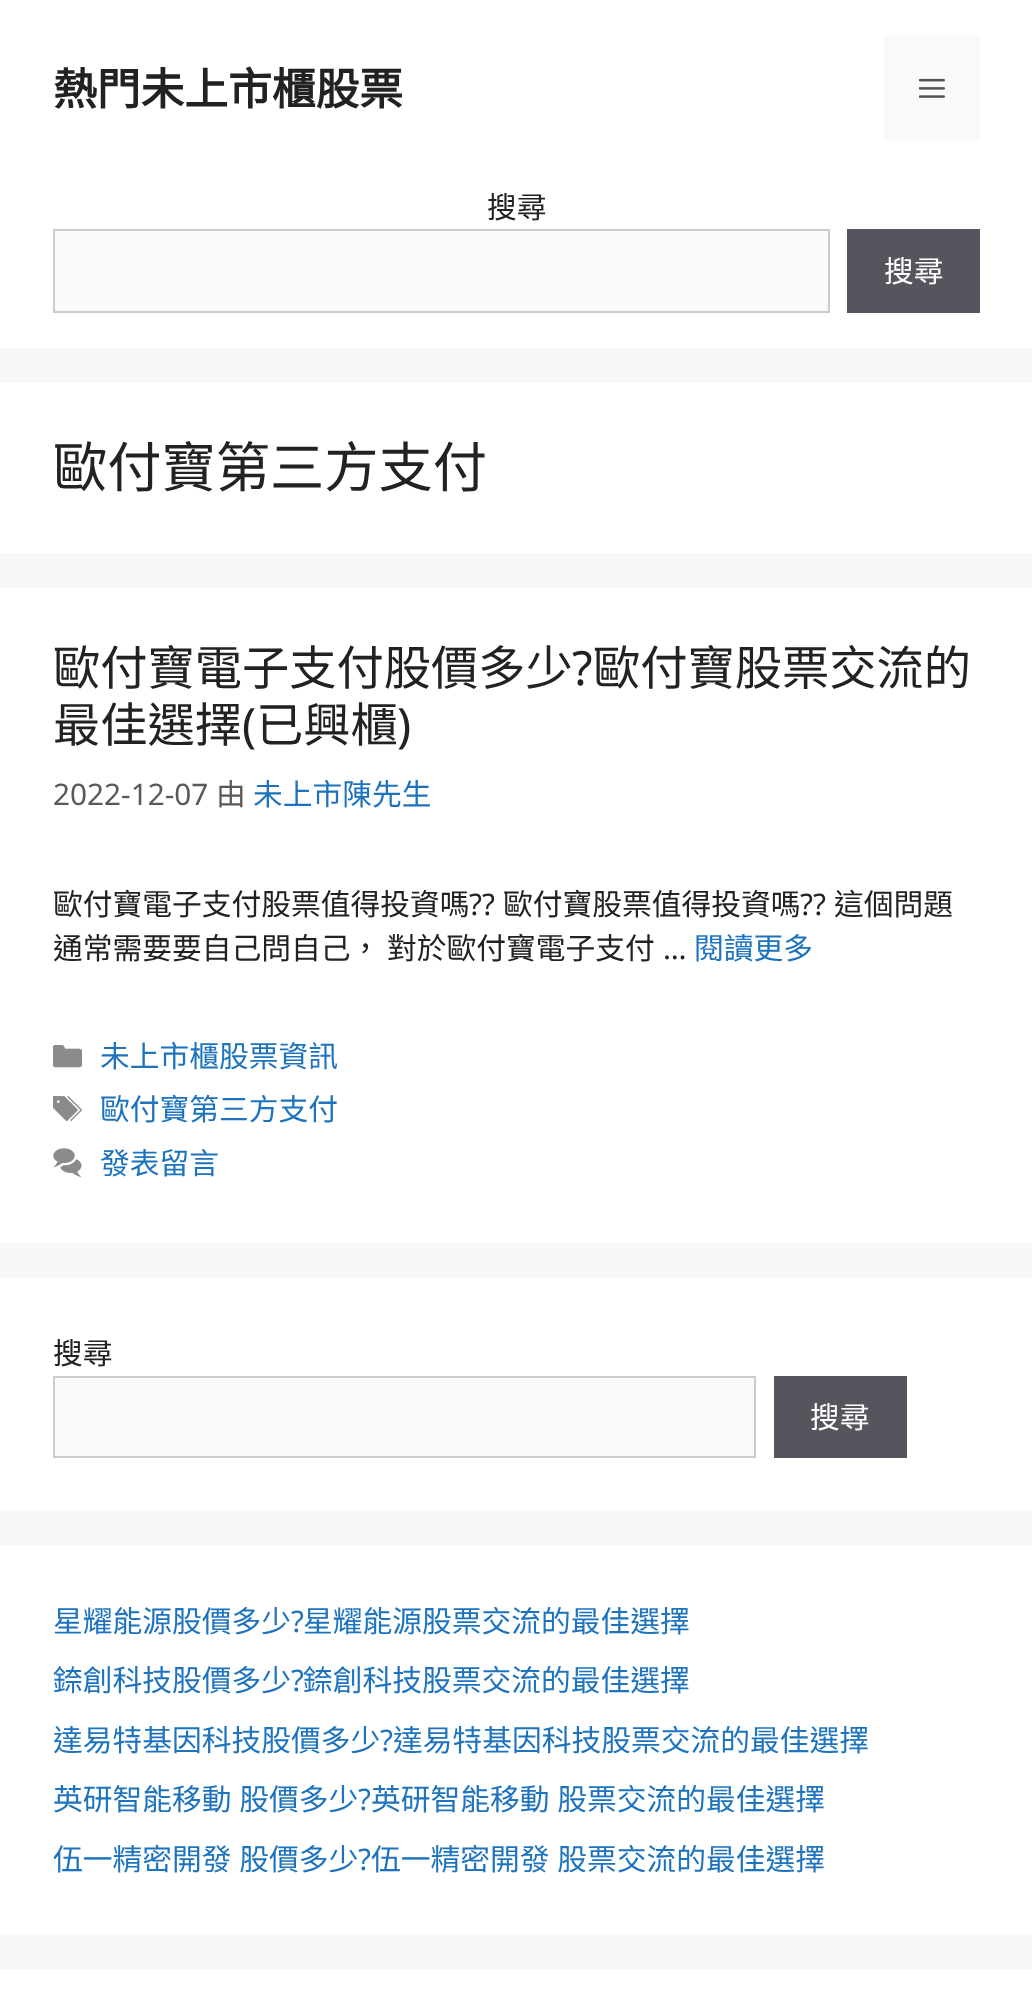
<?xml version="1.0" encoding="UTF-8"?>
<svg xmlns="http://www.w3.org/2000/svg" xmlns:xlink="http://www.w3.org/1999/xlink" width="1032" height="2008">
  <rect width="100%" height="100%" fill="#f7f8f9" />
  <rect width="1032" height="348" fill="#ffffff" />
  <rect x="884" y="35" width="96" height="105" fill="#fafafa" />
  <image x="919" y="78" width="26" height="20" xlink:href="image1.png" />
  <rect x="54" y="230" width="775" height="82" fill="#fafafa" stroke="#cccccc" stroke-width="2" />
  <rect x="847" y="229" width="133" height="84" fill="#55555e" />
  <rect y="383" width="1032" height="170" fill="#ffffff" />
  <rect y="588" width="1032" height="655" fill="#ffffff" />
  <image x="53" y="1045" width="29" height="23" xlink:href="image2.png" />
  <image x="53" y="1096" width="29" height="26" xlink:href="image3.png" />
  <image x="53" y="1148" width="29" height="30" xlink:href="image4.png" />
  <rect y="1278" width="1032" height="232" fill="#ffffff" />
  <rect x="54" y="1377" width="701" height="80" fill="#fafafa" stroke="#cccccc" stroke-width="2" />
  <rect x="774" y="1376" width="133" height="82" fill="#55555e" />
  <rect y="1545" width="1032" height="389" fill="#ffffff" />
  <rect y="1969" width="1032" height="39" fill="#ffffff" />
  <text x="53" y="105" style="font-family: Noto Sans CJK TC; font-size: 43.75px; font-weight: bold; fill: #222222">熱門未上市櫃股票</text>
  <text x="487" y="218" style="font-family: Noto Sans CJK TC; font-size: 29.75px; fill: #222222">搜尋</text>
  <text x="884" y="282" style="font-family: Noto Sans CJK TC; font-size: 29.75px; fill: #ffffff">搜尋</text>
  <text x="53" y="487" style="font-family: Noto Sans CJK TC; font-size: 54.25px; fill: #222222">歐付寶第三方支付</text>
  <text x="53" y="685" style="font-family: Noto Sans CJK TC; font-size: 47.25px; fill: #222222">歐付寶電子支付股價多少</text>
  <text x="572" y="685" style="font-family: Noto Sans; font-size: 47.25px; fill: #222222">?</text>
  <text x="593" y="685" style="font-family: Noto Sans CJK TC; font-size: 47.25px; fill: #222222">歐付寶股票交流的</text>
  <text x="53" y="742" style="font-family: Noto Sans CJK TC; font-size: 47.25px; fill: #222222">最佳選擇</text>
  <text x="242" y="742" style="font-family: Noto Sans; font-size: 47.25px; fill: #222222">(</text>
  <text x="256" y="742" style="font-family: Noto Sans CJK TC; font-size: 47.25px; fill: #222222">已興櫃</text>
  <text x="397" y="742" style="font-family: Noto Sans; font-size: 47.25px; fill: #222222">)</text>
  <text x="53" y="805" style="font-family: Noto Sans; font-size: 29.75px; fill: #595959">2022-12-07</text>
  <text x="216" y="805" style="font-family: Noto Sans CJK TC; font-size: 29.75px; fill: #595959">由</text>
  <text x="253" y="805" style="font-family: Noto Sans CJK TC; font-size: 29.75px; fill: #1e73be">未上市陳先生</text>
  <text x="53" y="915" style="font-family: Noto Sans CJK TC; font-size: 29.75px; fill: #222222">歐付寶電子支付股票值得投資嗎</text>
  <text x="469" y="915" style="font-family: Noto Sans; font-size: 29.75px; fill: #222222">??</text>
  <text x="503" y="915" style="font-family: Noto Sans CJK TC; font-size: 29.75px; fill: #222222">歐付寶股票值得投資嗎</text>
  <text x="800" y="915" style="font-family: Noto Sans; font-size: 29.75px; fill: #222222">??</text>
  <text x="834" y="915" style="font-family: Noto Sans CJK TC; font-size: 29.75px; fill: #222222">這個問題</text>
  <text x="53" y="959" style="font-family: Noto Sans CJK TC; font-size: 29.75px; fill: #222222">通常需要要自己問自己， 對於歐付寶電子支付</text>
  <text x="663" y="959" style="font-family: Noto Sans; font-size: 29.75px; fill: #222222">…</text>
  <text x="694" y="959" style="font-family: Noto Sans CJK TC; font-size: 29.75px; fill: #1e73be">閱讀更多</text>
  <text x="100" y="1067" style="font-family: Noto Sans CJK TC; font-size: 29.75px; fill: #1e73be">未上市櫃股票資訊</text>
  <text x="100" y="1120" style="font-family: Noto Sans CJK TC; font-size: 29.75px; fill: #1e73be">歐付寶第三方支付</text>
  <text x="100" y="1174" style="font-family: Noto Sans CJK TC; font-size: 29.75px; fill: #1e73be">發表留言</text>
  <text x="53" y="1364" style="font-family: Noto Sans CJK TC; font-size: 29.75px; fill: #222222">搜尋</text>
  <text x="810" y="1428" style="font-family: Noto Sans CJK TC; font-size: 29.75px; fill: #ffffff">搜尋</text>
  <text x="53" y="1632" style="font-family: Noto Sans CJK TC; font-size: 29.75px; fill: #1e73be">星耀能源股價多少</text>
  <text x="291" y="1632" style="font-family: Noto Sans; font-size: 29.75px; fill: #1e73be">?</text>
  <text x="303" y="1632" style="font-family: Noto Sans CJK TC; font-size: 29.75px; fill: #1e73be">星耀能源股票交流的最佳選擇</text>
  <text x="53" y="1691" style="font-family: Noto Sans CJK TC; font-size: 29.75px; fill: #1e73be">錼創科技股價多少</text>
  <text x="291" y="1691" style="font-family: Noto Sans; font-size: 29.75px; fill: #1e73be">?</text>
  <text x="303" y="1691" style="font-family: Noto Sans CJK TC; font-size: 29.75px; fill: #1e73be">錼創科技股票交流的最佳選擇</text>
  <text x="53" y="1751" style="font-family: Noto Sans CJK TC; font-size: 29.75px; fill: #1e73be">達易特基因科技股價多少</text>
  <text x="380" y="1751" style="font-family: Noto Sans; font-size: 29.75px; fill: #1e73be">?</text>
  <text x="393" y="1751" style="font-family: Noto Sans CJK TC; font-size: 29.75px; fill: #1e73be">達易特基因科技股票交流的最佳選擇</text>
  <text x="53" y="1810" word-spacing="1" style="font-family: Noto Sans CJK TC; font-size: 29.75px; fill: #1e73be">英研智能移動 股價多少</text>
  <text x="358" y="1810" style="font-family: Noto Sans; font-size: 29.75px; fill: #1e73be">?</text>
  <text x="371" y="1810" word-spacing="1" style="font-family: Noto Sans CJK TC; font-size: 29.75px; fill: #1e73be">英研智能移動 股票交流的最佳選擇</text>
  <text x="53" y="1870" word-spacing="1" style="font-family: Noto Sans CJK TC; font-size: 29.75px; fill: #1e73be">伍一精密開發 股價多少</text>
  <text x="358" y="1870" style="font-family: Noto Sans; font-size: 29.75px; fill: #1e73be">?</text>
  <text x="371" y="1870" word-spacing="1" style="font-family: Noto Sans CJK TC; font-size: 29.75px; fill: #1e73be">伍一精密開發 股票交流的最佳選擇</text>
</svg>
